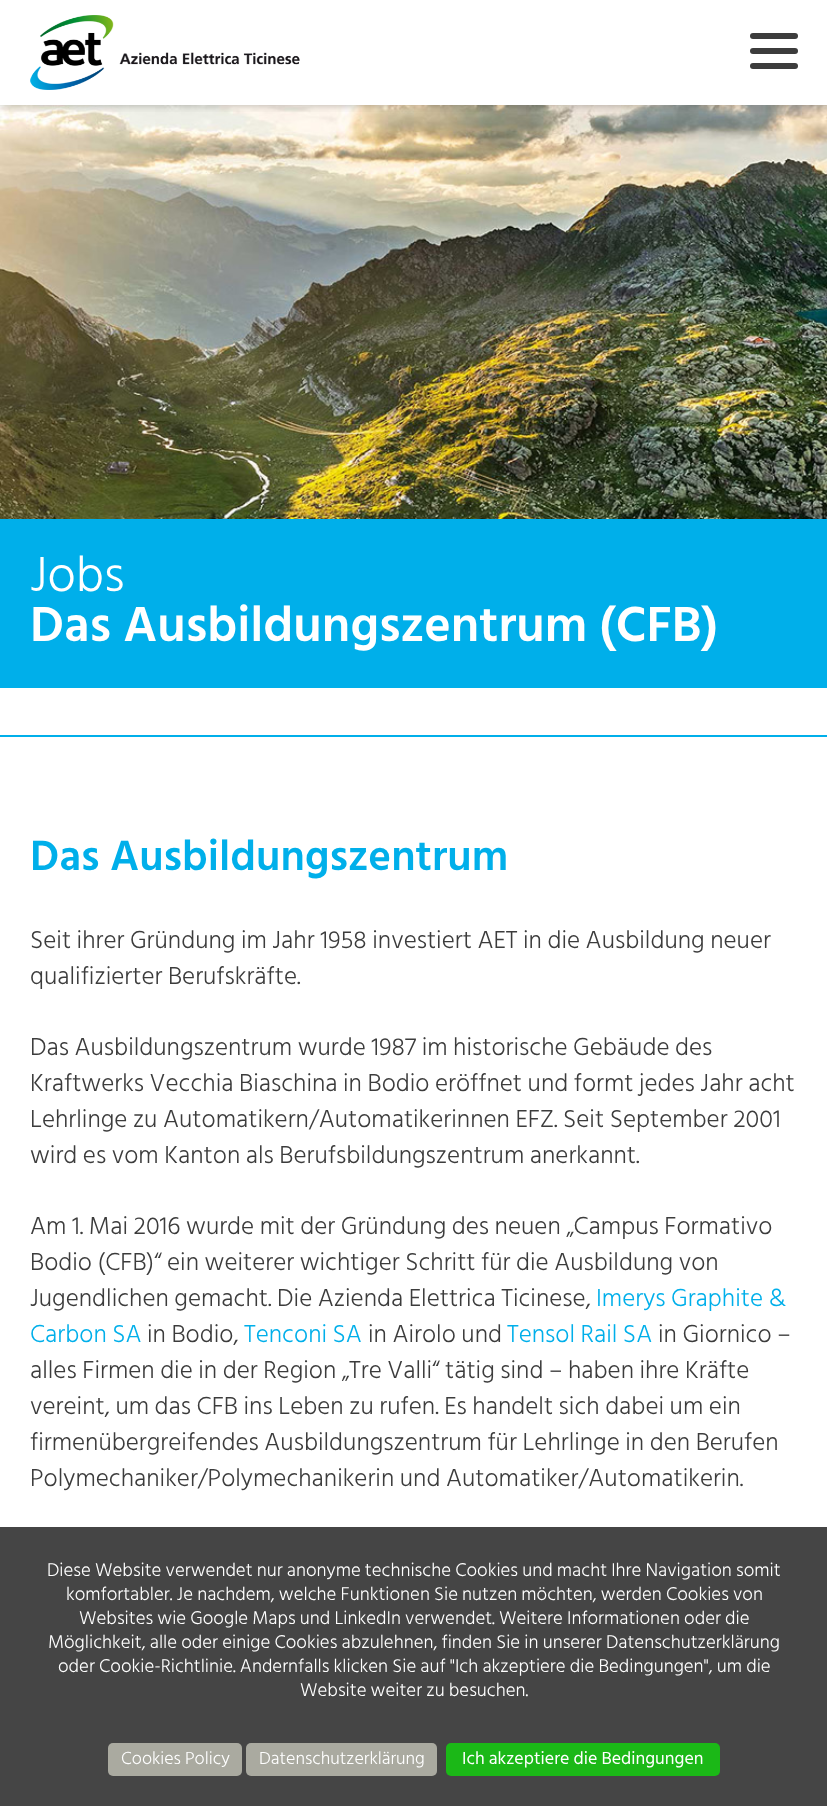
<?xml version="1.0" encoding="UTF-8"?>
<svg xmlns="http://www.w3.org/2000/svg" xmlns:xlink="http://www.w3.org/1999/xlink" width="827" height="1806">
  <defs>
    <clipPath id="clip1"><rect x="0" y="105" width="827" height="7" /></clipPath>
  </defs>
  <rect width="100%" height="100%" fill="#ffffff" />
  <image x="0" y="105" width="827" height="414" xlink:href="image2.png" />
  <g clip-path="url(#clip1)">
    <rect width="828" height="105" fill="#000000" fill-opacity="0.3" filter="blur(4.5px)" />
  </g>
  <image x="30" y="15" width="270" height="75" xlink:href="image1.png" />
  <rect x="750" y="33" width="48" height="6" rx="3" fill="#3c3c3c" />
  <rect x="750" y="48" width="48" height="6" rx="3" fill="#3c3c3c" />
  <rect x="750" y="63" width="48" height="6" rx="3" fill="#3c3c3c" />
  <rect y="519" width="827" height="169" fill="#00afea" />
  <rect y="735" width="827" height="2" fill="#00afea" />
  <rect y="1527" width="827" height="279" fill="#454545" />
  <rect x="108" y="1743" width="134" height="33" rx="5" fill="#aaaaa0" />
  <rect x="246" y="1743" width="191" height="33" rx="5" fill="#aaaaa0" />
  <rect x="446" y="1743" width="274" height="33" rx="5" fill="#1bb817" />
  <text x="30" y="591" style="font-family: Hind Siliguri; font-size: 50.4px; font-weight: 300; fill: #ffffff">Jobs</text>
  <text x="30" y="641" style="font-family: Hind Siliguri; font-size: 50.4px; font-weight: 600; fill: #ffffff">Das Ausbildungszentrum (CFB)</text>
  <text x="30" y="870" style="font-family: Hind Siliguri; font-size: 43.25px; font-weight: 600; fill: #00afea">Das Ausbildungszentrum</text>
  <text x="30" y="948" style="font-family: Hind Siliguri; font-size: 25.2px; font-weight: 300; fill: #3c3c3c">Seit ihrer Gründung im Jahr 1958 investiert AET in die Ausbildung neuer</text>
  <text x="30" y="984" style="font-family: Hind Siliguri; font-size: 25.2px; font-weight: 300; fill: #3c3c3c">qualifizierter Berufskräfte.</text>
  <text x="30" y="1055" style="font-family: Hind Siliguri; font-size: 25.2px; font-weight: 300; fill: #3c3c3c">Das Ausbildungszentrum wurde 1987 im historische Gebäude des</text>
  <text x="30" y="1091" style="font-family: Hind Siliguri; font-size: 25.2px; font-weight: 300; fill: #3c3c3c">Kraftwerks Vecchia Biaschina in Bodio eröffnet und formt jedes Jahr acht</text>
  <text x="30" y="1127" style="font-family: Hind Siliguri; font-size: 25.2px; font-weight: 300; fill: #3c3c3c">Lehrlinge zu Automatikern/Automatikerinnen EFZ. Seit September 2001</text>
  <text x="30" y="1163" style="font-family: Hind Siliguri; font-size: 25.2px; font-weight: 300; fill: #3c3c3c">wird es vom Kanton als Berufsbildungszentrum anerkannt.</text>
  <text x="30" y="1234" style="font-family: Hind Siliguri; font-size: 25.2px; font-weight: 300; fill: #3c3c3c">Am 1. Mai 2016 wurde mit der Gründung des neuen „Campus Formativo</text>
  <text x="30" y="1270" style="font-family: Hind Siliguri; font-size: 25.2px; font-weight: 300; fill: #3c3c3c">Bodio (CFB)“ ein weiterer wichtiger Schritt für die Ausbildung von</text>
  <text x="30" y="1306" style="font-family: Hind Siliguri; font-size: 25.2px; font-weight: 300; fill: #3c3c3c">Jugendlichen gemacht. Die Azienda Elettrica Ticinese,</text>
  <text x="596" y="1306" style="font-family: Hind Siliguri; font-size: 25.2px; font-weight: 300; fill: #00afea">Imerys Graphite &amp;</text>
  <text x="30" y="1342" style="font-family: Hind Siliguri; font-size: 25.2px; font-weight: 300; fill: #00afea">Carbon SA</text>
  <text x="147" y="1342" style="font-family: Hind Siliguri; font-size: 25.2px; font-weight: 300; fill: #3c3c3c">in Bodio,</text>
  <text x="244" y="1342" style="font-family: Hind Siliguri; font-size: 25.2px; font-weight: 300; fill: #00afea">Tenconi SA</text>
  <text x="368" y="1342" style="font-family: Hind Siliguri; font-size: 25.2px; font-weight: 300; fill: #3c3c3c">in Airolo und</text>
  <text x="507" y="1342" style="font-family: Hind Siliguri; font-size: 25.2px; font-weight: 300; fill: #00afea">Tensol Rail SA</text>
  <text x="658" y="1342" style="font-family: Hind Siliguri; font-size: 25.2px; font-weight: 300; fill: #3c3c3c">in Giornico –</text>
  <text x="30" y="1378" style="font-family: Hind Siliguri; font-size: 25.2px; font-weight: 300; fill: #3c3c3c">alles Firmen die in der Region „Tre Valli“ tätig sind – haben ihre Kräfte</text>
  <text x="30" y="1414" style="font-family: Hind Siliguri; font-size: 25.2px; font-weight: 300; fill: #3c3c3c">vereint, um das CFB ins Leben zu rufen. Es handelt sich dabei um ein</text>
  <text x="30" y="1450" style="font-family: Hind Siliguri; font-size: 25.2px; font-weight: 300; fill: #3c3c3c">firmenübergreifendes Ausbildungszentrum für Lehrlinge in den Berufen</text>
  <text x="30" y="1486" style="font-family: Hind Siliguri; font-size: 25.2px; font-weight: 300; fill: #3c3c3c">Polymechaniker/Polymechanikerin und Automatiker/Automatikerin.</text>
  <text x="47" y="1576" style="font-family: Hind Siliguri; font-size: 18.9px; font-weight: 300; fill: #ffffff">Diese Website verwendet nur anonyme technische Cookies und macht Ihre Navigation somit</text>
  <text x="66" y="1600" style="font-family: Hind Siliguri; font-size: 18.9px; font-weight: 300; fill: #ffffff">komfortabler. Je nachdem, welche Funktionen Sie nutzen möchten, werden Cookies von</text>
  <text x="79" y="1624" style="font-family: Hind Siliguri; font-size: 18.9px; font-weight: 300; fill: #ffffff">Websites wie Google Maps und LinkedIn verwendet. Weitere Informationen oder die</text>
  <text x="48" y="1648" style="font-family: Hind Siliguri; font-size: 18.9px; font-weight: 300; fill: #ffffff">Möglichkeit, alle oder einige Cookies abzulehnen, finden Sie in unserer Datenschutzerklärung</text>
  <text x="58" y="1672" style="font-family: Hind Siliguri; font-size: 18.9px; font-weight: 300; fill: #ffffff">oder Cookie-Richtlinie. Andernfalls klicken Sie auf "Ich akzeptiere die Bedingungen", um die</text>
  <text x="300" y="1696" style="font-family: Hind Siliguri; font-size: 18.9px; font-weight: 300; fill: #ffffff">Website weiter zu besuchen.</text>
  <text x="121" y="1764" style="font-family: Hind Siliguri; font-size: 18px; font-weight: 300; fill: #ffffff">Cookies Policy</text>
  <text x="259" y="1764" style="font-family: Hind Siliguri; font-size: 18px; font-weight: 300; fill: #ffffff">Datenschutzerklärung</text>
  <text x="462" y="1764" style="font-family: Hind Siliguri; font-size: 18px; fill: #ffffff">Ich akzeptiere die Bedingungen</text>
</svg>
